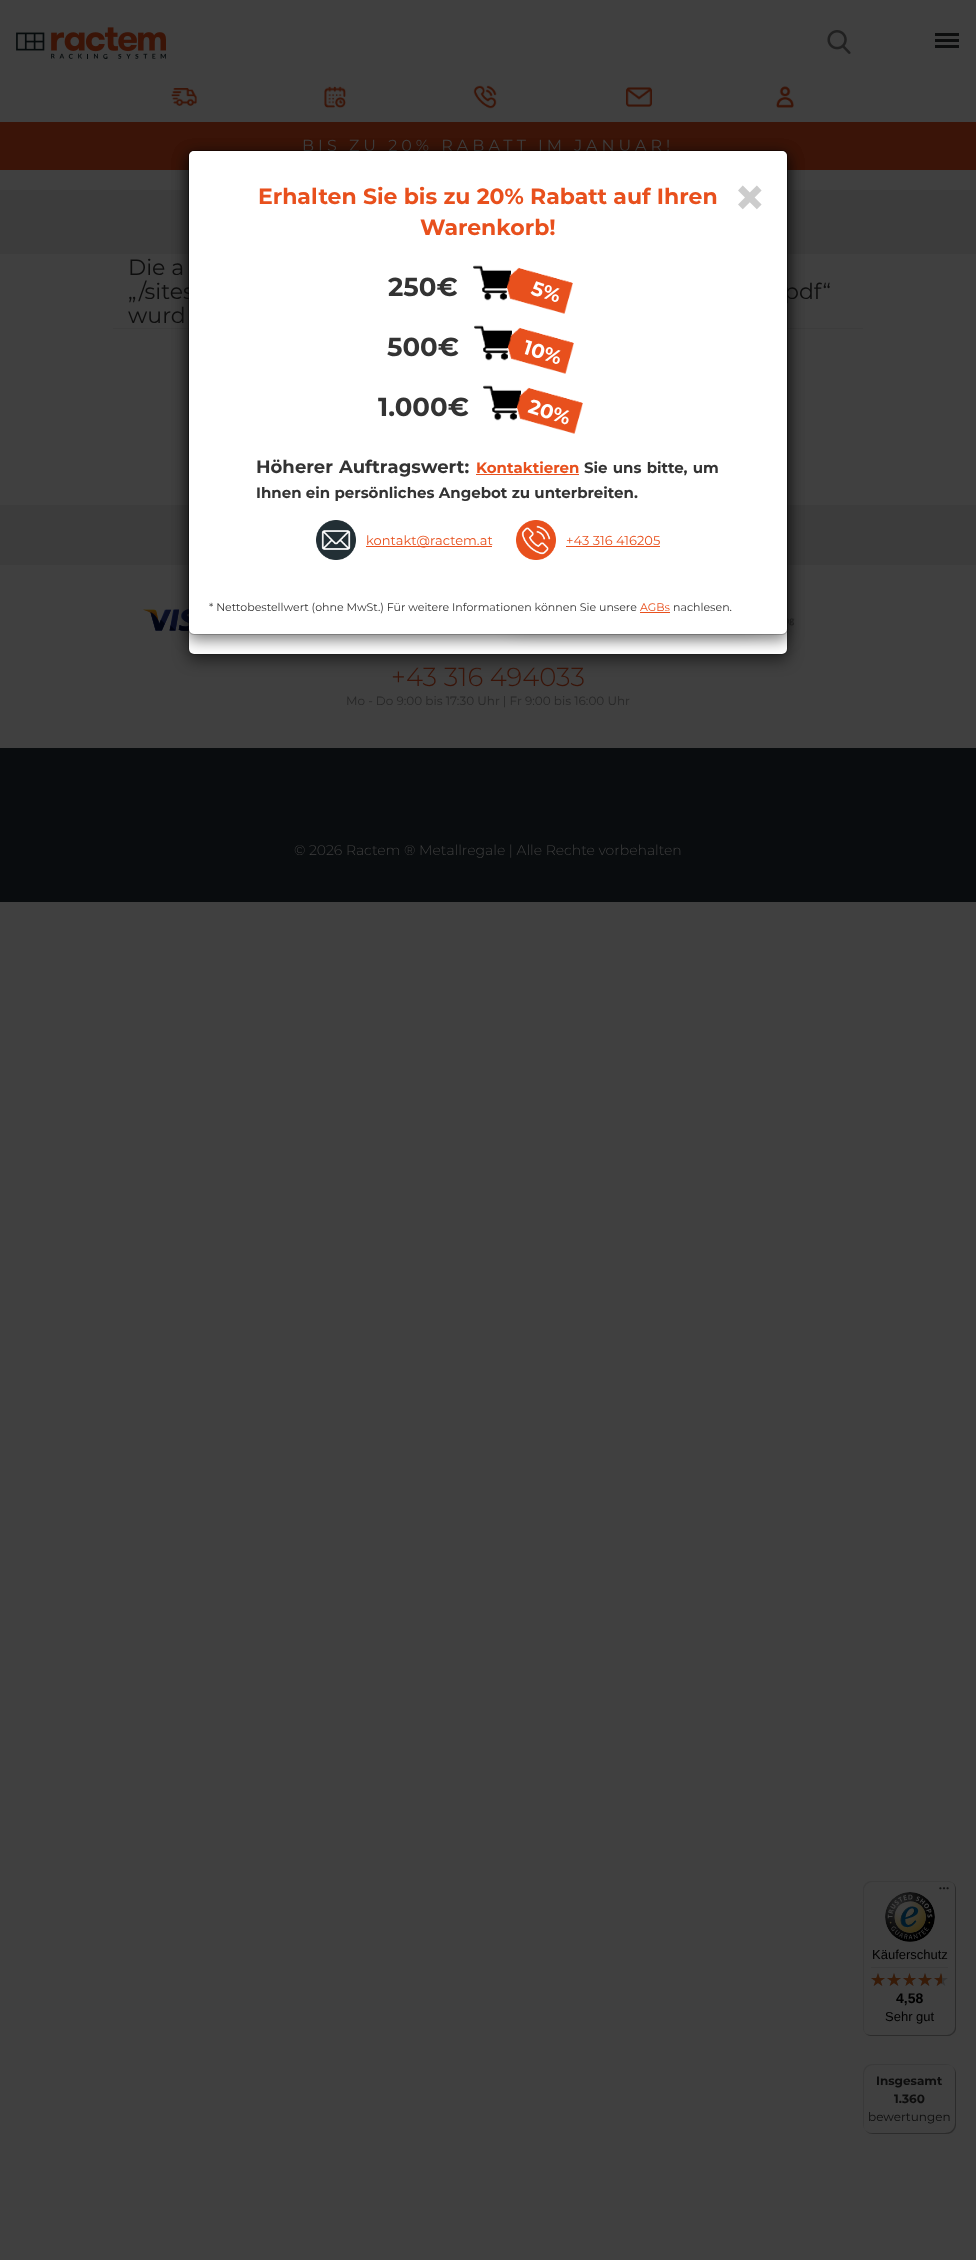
<?xml version="1.0" encoding="UTF-8"?>
<svg xmlns="http://www.w3.org/2000/svg" xmlns:xlink="http://www.w3.org/1999/xlink" width="976" height="2260">
  <rect width="100%" height="100%" fill="#404040" />
  <rect y="122" width="976" height="48" fill="#3a1408" />
  <rect y="190" width="976" height="64" fill="#3c3c3c" />
  <rect x="113" y="328" width="750" height="1" fill="#3c3c3c" />
  <rect y="505" width="976" height="60" fill="#3c3c3c" />
  <image x="143" y="609" width="46" height="22" xlink:href="image11.png" />
  <image x="787" y="610" width="8" height="20" xlink:href="image12.png" />
  <rect x="188" y="155" width="600" height="505" rx="6" fill="#000000" fill-opacity="0.5" filter="blur(7.5px)" />
  <image x="16" y="27" width="150" height="32" xlink:href="image1.png" />
  <image x="827" y="30" width="24" height="24" xlink:href="image2.png" />
  <rect x="935" y="39" width="24" height="3" fill="#0c0d0d" />
  <rect x="935" y="33" width="24" height="3" fill="#0c0d0d" />
  <rect x="935" y="45" width="24" height="3" fill="#0c0d0d" />
  <image x="171" y="88" width="26" height="18" xlink:href="image3.png" />
  <image x="324" y="86" width="22" height="22" xlink:href="image4.png" />
  <image x="473" y="85" width="24" height="24" xlink:href="image5.png" />
  <image x="626" y="87" width="26" height="20" xlink:href="image6.png" />
  <image x="776" y="86" width="18" height="22" xlink:href="image7.png" />
  <rect y="748" width="976" height="154" fill="#090c0e" />
  <path d="M 872 1882 h 77 c 2 0 4 1 6 3 c -2 -2 -4 -4 -7 -4 h -77 c -4 0 -8 4 -8 8 v 139 c 0 3 2 5 4 7 c -2 -2 -3 -4 -3 -6 v -139 c 0 -4 4 -8 8 -8 z" fill="#3a3a3a" />
  <path d="M 864 2032 c 2 2 4 4 7 4 h 77 c 4 0 8 -4 8 -8 v -139 c 0 -3 -2 -5 -4 -7 c 2 2 3 4 3 6 v 139 c 0 4 -4 8 -8 8 h -77 c -2 0 -4 -1 -6 -3 z" fill="#333333" />
  <path d="M 865 2033 c 1 2 4 3 6 3 h 77 c 4 0 8 -4 8 -8 v -139 c 0 -2 -1 -5 -3 -6 c 1 1 2 3 2 5 v 139 c 0 5 -3 8 -8 8 h -77 c -2 0 -4 -1 -5 -2 z" fill="#0d0d0d" fill-opacity="0.2" />
  <image x="939" y="1887" width="10" height="3" xlink:href="image13.png" />
  <image x="885" y="1892" width="50" height="50" xlink:href="image14.png" />
  <rect x="871" y="1967" width="77" height="1" fill="#3a3a3a" />
  <image x="871" y="1973" width="14" height="13" xlink:href="image15.png" />
  <image x="887" y="1973" width="14" height="13" xlink:href="image15.png" />
  <image x="903" y="1973" width="13" height="13" xlink:href="image16.png" />
  <image x="918" y="1973" width="14" height="13" xlink:href="image15.png" />
  <image x="934" y="1973" width="14" height="13" xlink:href="image15.png" />
  <image x="871" y="1973" width="14" height="13" xlink:href="image17.png" />
  <image x="887" y="1973" width="14" height="13" xlink:href="image17.png" />
  <image x="903" y="1973" width="13" height="13" xlink:href="image18.png" />
  <image x="918" y="1973" width="14" height="13" xlink:href="image17.png" />
  <image x="934" y="1973" width="8" height="13" xlink:href="image19.png" />
  <path d="M 874 2065 h 73 c 2 0 4 0 5 1 c -1 -1 -4 -2 -6 -2 h -73 c -6 0 -10 4 -10 10 v 50 c 0 2 1 5 2 6 c -1 -1 -1 -3 -1 -5 v -50 c 0 -6 4 -10 10 -10 z" fill="#000000" fill-opacity="0.1" />
  <path d="M 867 2132 c 1 1 4 2 6 2 h 73 c 6 0 10 -4 10 -10 v -50 c 0 -2 -1 -5 -2 -6 c 1 1 1 3 1 5 v 50 c 0 6 -4 10 -10 10 h -73 c -2 0 -4 0 -5 -1 z" fill="#000000" fill-opacity="0.2" />
  <path d="M 865 2130 c 2 3 5 4 8 4 h 73 c 6 0 10 -4 10 -10 v -50 c 0 -3 -1 -6 -4 -8 c 2 2 3 5 3 7 v 50 c 0 6 -4 10 -10 10 h -73 c -2 0 -5 -1 -7 -3 z" fill="#0d0d0d" fill-opacity="0.2" />
  <path d="M 946 2134 c 6 0 10 -4 10 -10 c 0 5 -5 10 -10 10 z m 8 -66 c -2 -3 -5 -4 -8 -4 c 3 0 6 1 8 4 z" fill="#404040" fill-opacity="0.3" fill-rule="evenodd" />
  <text x="302" y="151" style="font-family: Montserrat; font-size: 16px; letter-spacing: 4px; fill: #404040">BIS ZU 20% RABATT IM JANUAR!</text>
  <text x="128" y="275" style="font-family: Montserrat; font-size: 22px; fill: #0d0d0d">Die a</text>
  <text x="128" y="299" style="font-family: Montserrat; font-size: 22px; fill: #0d0d0d">„/sites</text>
  <text x="784" y="299" style="font-family: Montserrat; font-size: 22px; fill: #0d0d0d">pdf“</text>
  <rect x="189" y="151" width="598" height="503" rx="5" fill="#ffffff" />
  <rect x="188.5" y="150.5" width="599" height="504" rx="5.5" fill="none" stroke="#000000" stroke-opacity="0.2" />
  <rect x="188" y="155" width="600" height="485" rx="6" fill="#000000" fill-opacity="0.5" filter="blur(7.5px)" />
  <rect x="504" y="588" width="261" height="39" rx="19.5" fill="#000000" fill-opacity="0.31" filter="blur(9px)" />
  <rect x="189" y="151" width="598" height="483" rx="5" fill="#ffffff" />
  <rect x="188.5" y="150.5" width="599" height="484" rx="5.5" fill="none" stroke="#000000" stroke-opacity="0.2" />
  <image x="483" y="385" width="100" height="49" xlink:href="image8.png" />
  <text x="527" y="412" transform="rotate(18 527 412)" style="font-family: Montserrat; font-size: 20px; font-weight: bold; fill: #ffffff">20%</text>
  <image x="474" y="325" width="100" height="49" xlink:href="image8.png" />
  <text x="522" y="353" transform="rotate(18 522 353)" style="font-family: Montserrat; font-size: 20px; font-weight: bold; fill: #ffffff">10%</text>
  <image x="473" y="265" width="100" height="49" xlink:href="image8.png" />
  <text x="530" y="294" transform="rotate(18 530 294)" style="font-family: Montserrat; font-size: 20px; font-weight: bold; fill: #ffffff">5%</text>
  <text x="673" y="611" style="font-family: Montserrat; font-size: 11px; fill: #333333">nachlesen.</text>
  <text x="640" y="611" style="font-family: Montserrat; font-size: 11px; fill: #e8501d">AGBs</text>
  <rect x="640" y="612" width="30" height="1" fill="#e8501d" />
  <text x="209" y="611" style="font-family: Montserrat; font-size: 11px; fill: #333333">* Nettobestellwert (ohne MwSt.) Für weitere Informationen können Sie unsere</text>
  <text x="566" y="545" style="font-family: Montserrat; font-size: 13px; fill: #e8501d">+43 316 416205</text>
  <rect x="566" y="546" width="94" height="1" fill="#e8501d" />
  <image x="516" y="520" width="40" height="40" xlink:href="image10.png" />
  <rect x="366" y="546" width="126" height="1" fill="#e8501d" />
  <text x="366" y="545" style="font-family: Montserrat; font-size: 13px; fill: #e8501d">kontakt@ractem.at</text>
  <image x="316" y="520" width="40" height="40" xlink:href="image9.png" />
  <text x="256" y="498" style="font-family: Montserrat; font-size: 15px; font-weight: bold; fill: #333333">Ihnen ein persönliches Angebot zu unterbreiten.</text>
  <text x="584" y="473" word-spacing="1" style="font-family: Montserrat; font-size: 15px; font-weight: bold; fill: #333333">Sie uns bitte, um</text>
  <text x="476" y="473" style="font-family: Montserrat; font-size: 15px; font-weight: bold; fill: #e8501d">Kontaktieren</text>
  <rect x="476" y="474" width="103" height="1" fill="#e8501d" />
  <text x="256" y="473" word-spacing="1" style="font-family: Montserrat; font-size: 18px; font-weight: bold; fill: #333333">Höherer Auftragswert:</text>
  <text x="378" y="416" style="font-family: Montserrat; font-size: 26px; font-weight: bold; fill: #333333">1.000€</text>
  <text x="387" y="356" style="font-family: Montserrat; font-size: 26px; font-weight: bold; fill: #333333">500€</text>
  <text x="388" y="296" style="font-family: Montserrat; font-size: 26px; font-weight: bold; fill: #333333">250€</text>
  <text x="733" y="217" style="font-family: Montserrat; font-size: 56px; font-weight: bold; fill: #cccccc">×</text>
  <text x="420" y="235" style="font-family: Montserrat; font-size: 22px; font-weight: bold; fill: #e8501d">Warenkorb!</text>
  <text x="258" y="204" style="font-family: Montserrat; font-size: 22px; font-weight: bold; fill: #e8501d">Erhalten Sie bis zu 20% Rabatt auf Ihren</text>
  <text x="128" y="323" style="font-family: Montserrat; font-size: 22px; fill: #0d0d0d">wurd</text>
  <text x="391" y="686" style="font-family: Montserrat; font-size: 26px; font-weight: 300; fill: #3a1408">+43 316 494033</text>
  <text x="346" y="705" style="font-family: Montserrat; font-size: 12px; fill: #262626">Mo - Do 9:00 bis 17:30 Uhr | Fr 9:00 bis 16:00 Uhr</text>
  <text x="294" y="855" style="font-family: Montserrat; font-size: 14px; font-weight: 300; fill: #404040">© 2026 Ractem ® Metallregale | Alle Rechte vorbehalten</text>
  <text x="872" y="1959" style="font-family: Liberation Sans; font-size: 13px; fill: #000000">Käuferschutz</text>
  <text x="896" y="2003" style="font-family: Liberation Sans; font-size: 14px; font-weight: bold; fill: #000000">4,58</text>
  <text x="885" y="2021" style="font-family: Liberation Sans; font-size: 13px; fill: #000000">Sehr gut</text>
  <text x="876" y="2085" style="font-family: Montserrat; font-size: 12px; font-weight: bold; fill: #0d0d0d">Insgesamt</text>
  <text x="894" y="2103" style="font-family: Montserrat; font-size: 12px; font-weight: bold; fill: #0d0d0d">1.360</text>
  <text x="868" y="2121" style="font-family: Montserrat; font-size: 12px; fill: #0d0d0d">bewertungen</text>
</svg>
